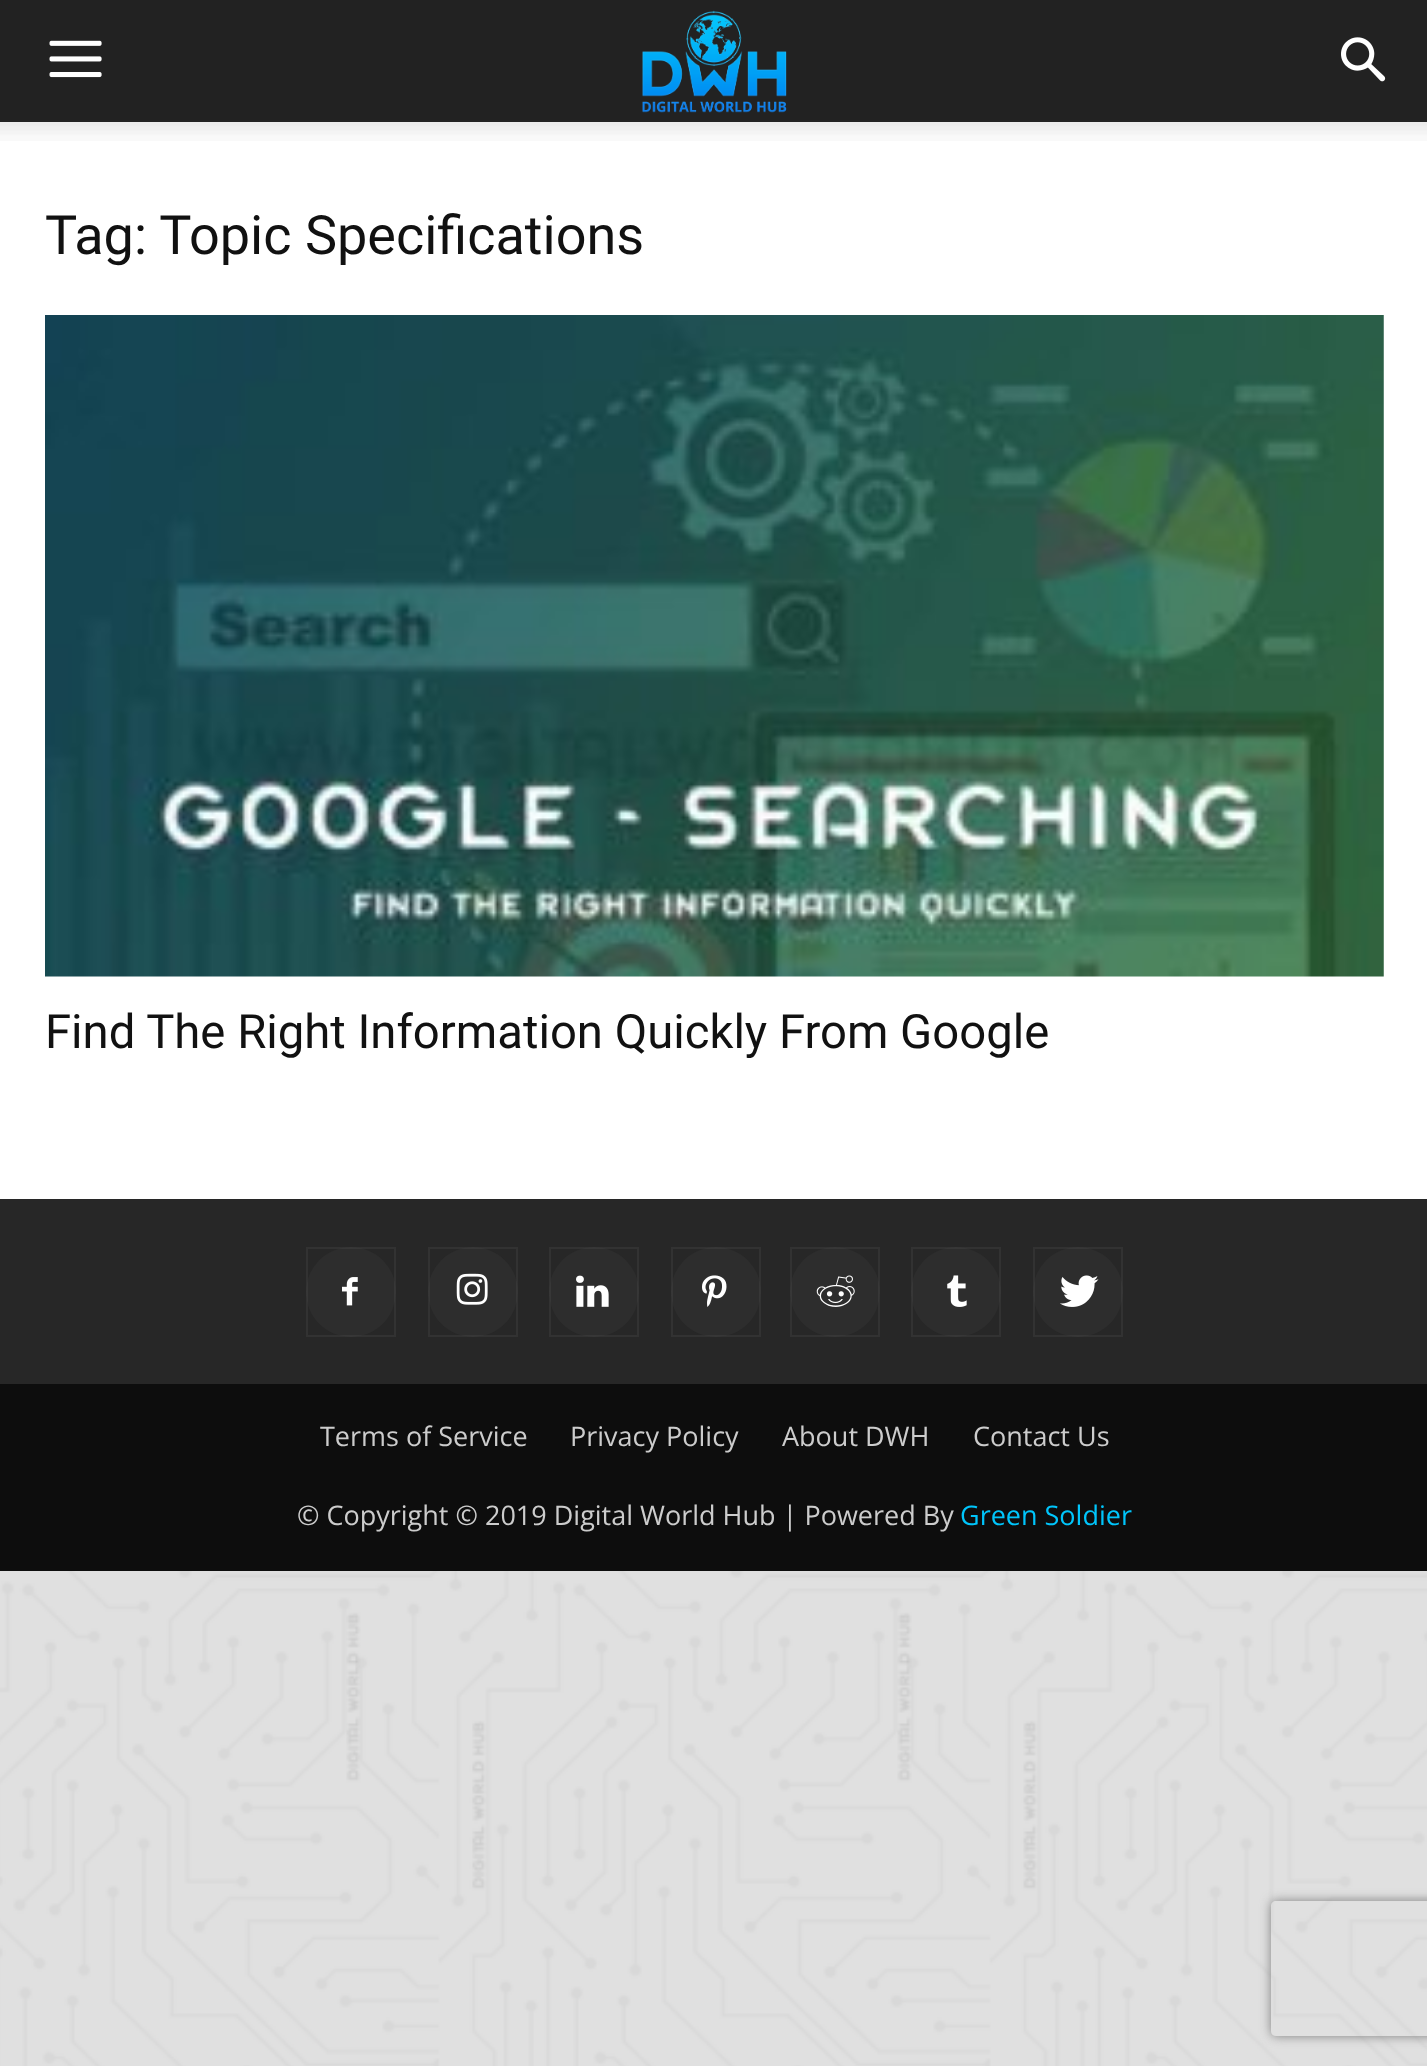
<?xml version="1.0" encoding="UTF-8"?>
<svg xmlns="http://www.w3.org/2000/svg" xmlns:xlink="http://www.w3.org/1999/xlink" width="1427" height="2066">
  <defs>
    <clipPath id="clip1"><path d="M 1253 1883 h 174 v 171 h -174 z m 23 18 h 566 c 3 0 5 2 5 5 v 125 c 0 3 -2 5 -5 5 h -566 c -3 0 -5 -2 -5 -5 v -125 c 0 -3 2 -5 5 -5 z" clip-rule="evenodd" /></clipPath>
  </defs>
  <rect width="100%" height="100%" fill="#ffffff" />
  <image x="0" y="1571" width="1427" height="495" xlink:href="image1.png" />
  <rect width="1427" height="122" fill="#222222" />
  <image x="49" y="40" width="53" height="38" xlink:href="image2.png" />
  <image x="642" y="10" width="145" height="103" xlink:href="image3.png" />
  <image x="1341" y="37" width="45" height="45" xlink:href="image4.png" />
  <image x="0" y="122" width="1427" height="19" xlink:href="image5.png" />
  <image x="45" y="315" width="1339" height="662" xlink:href="image6.png" />
  <rect y="1199" width="1427" height="185" fill="#272727" />
  <circle cx="351" cy="1292" r="45" fill="#2d2d2d" />
  <image x="342" y="1277" width="16" height="29" xlink:href="image7.png" />
  <rect x="307" y="1248" width="88" height="88" fill="none" stroke="#ffffff" stroke-opacity="0.05" stroke-width="2" />
  <circle cx="473" cy="1292" r="45" fill="#2d2d2d" />
  <image x="456" y="1273" width="32" height="32" xlink:href="image8.png" />
  <rect x="429" y="1248" width="88" height="88" fill="none" stroke="#ffffff" stroke-opacity="0.05" stroke-width="2" />
  <circle cx="594" cy="1292" r="45" fill="#2d2d2d" />
  <image x="576" y="1275" width="33" height="32" xlink:href="image9.png" />
  <rect x="550" y="1248" width="88" height="88" fill="none" stroke="#ffffff" stroke-opacity="0.05" stroke-width="2" />
  <circle cx="716" cy="1292" r="45" fill="#2d2d2d" />
  <image x="702" y="1275" width="25" height="32" xlink:href="image10.png" />
  <rect x="672" y="1248" width="88" height="88" fill="none" stroke="#ffffff" stroke-opacity="0.05" stroke-width="2" />
  <circle cx="835" cy="1292" r="45" fill="#2d2d2d" />
  <image x="816" y="1275" width="39" height="32" xlink:href="image11.png" />
  <rect x="791" y="1248" width="88" height="88" fill="none" stroke="#ffffff" stroke-opacity="0.05" stroke-width="2" />
  <circle cx="956" cy="1292" r="45" fill="#2d2d2d" />
  <image x="947" y="1275" width="20" height="32" xlink:href="image12.png" />
  <rect x="912" y="1248" width="88" height="88" fill="none" stroke="#ffffff" stroke-opacity="0.05" stroke-width="2" />
  <circle cx="1078" cy="1292" r="45" fill="#2d2d2d" />
  <image x="1060" y="1275" width="39" height="32" xlink:href="image13.png" />
  <rect x="1034" y="1248" width="88" height="88" fill="none" stroke="#ffffff" stroke-opacity="0.05" stroke-width="2" />
  <rect y="1384" width="1427" height="187" fill="#0d0d0d" />
  <g clip-path="url(#clip1)">
    <rect x="1271" y="1901" width="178" height="135" rx="5" fill="#808080" filter="blur(5.5px)" />
  </g>
  <text x="45" y="254" style="font-family: Roboto; font-size: 54px; fill: #111111">Tag: Topic Specifications</text>
  <text x="45" y="1048" style="font-family: Roboto; font-size: 47.25px; fill: #111111">Find The Right Information Quickly From Google</text>
  <text x="320" y="1446" style="font-family: Open Sans; font-size: 27px; fill: #cccccc">Terms of Service</text>
  <text x="570" y="1446" style="font-family: Open Sans; font-size: 27px; fill: #cccccc">Privacy Policy</text>
  <text x="782" y="1446" style="font-family: Open Sans; font-size: 27px; fill: #cccccc">About DWH</text>
  <text x="973" y="1446" style="font-family: Open Sans; font-size: 27px; fill: #cccccc">Contact Us</text>
  <text x="297" y="1525" style="font-family: Open Sans; font-size: 27px; fill: #cccccc">© Copyright © 2019 Digital World Hub | Powered By</text>
  <text x="960" y="1525" style="font-family: Open Sans; font-size: 27px; fill: #00c5fb">Green Soldier</text>
</svg>
